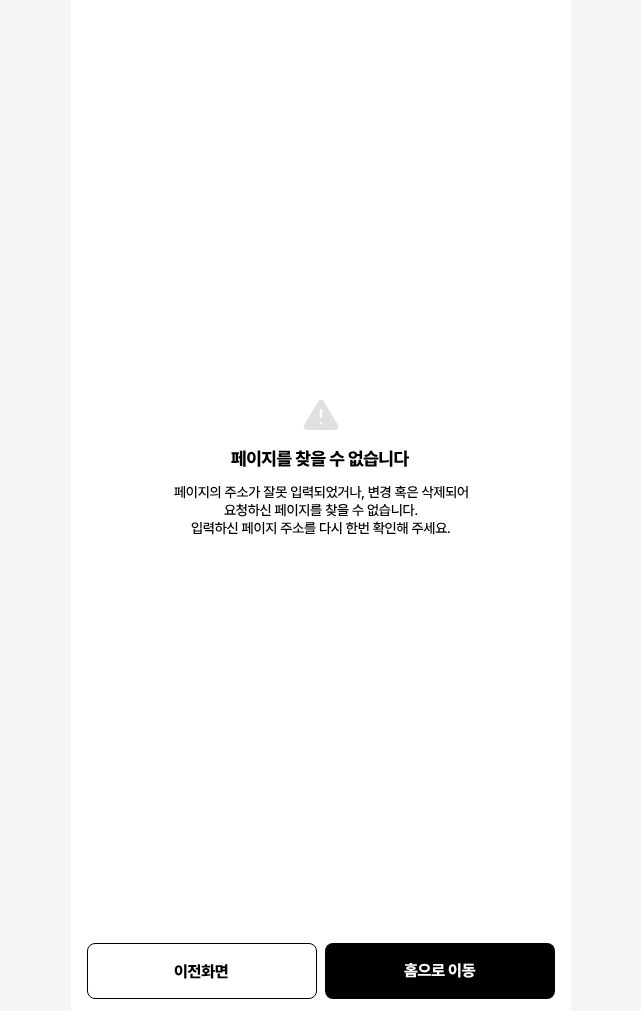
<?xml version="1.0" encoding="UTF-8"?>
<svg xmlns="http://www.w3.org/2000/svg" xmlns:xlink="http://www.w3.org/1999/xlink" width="641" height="1011">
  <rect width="100%" height="100%" fill="#f5f5f5" />
  <rect x="71" width="500" height="1011" fill="#ffffff" />
  <image x="303" y="400" width="36" height="30" xlink:href="image1.png" />
  <rect x="87.5" y="943.5" width="229" height="55" rx="7.5" fill="none" stroke="#000000" />
  <rect x="325" y="943" width="230" height="56" rx="8" fill="#000000" />
  <text x="231" y="465" style="font-family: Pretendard; font-size: 18px; font-weight: 800; letter-spacing: -0.4px; fill: #000000">페이지를 찾을 수 없습니다</text>
  <text x="174" y="497" style="font-family: Pretendard; font-size: 14px; font-weight: 500; letter-spacing: -0.25px; fill: #000000">페이지의 주소가 잘못 입력되었거나, 변경 혹은 삭제되어</text>
  <text x="224" y="515" style="font-family: Pretendard; font-size: 14px; font-weight: 500; letter-spacing: -0.25px; fill: #000000">요청하신 페이지를 찾을 수 없습니다.</text>
  <text x="191" y="533" style="font-family: Pretendard; font-size: 14px; font-weight: 500; letter-spacing: -0.25px; fill: #000000">입력하신 페이지 주소를 다시 한번 확인해 주세요.</text>
  <text x="174" y="977" style="font-family: Pretendard; font-size: 16px; font-weight: 800; letter-spacing: -0.25px; fill: #000000">이전화면</text>
  <text x="404" y="976" style="font-family: Pretendard; font-size: 16px; font-weight: 800; letter-spacing: -0.25px; fill: #ffffff">홈으로 이동</text>
</svg>
